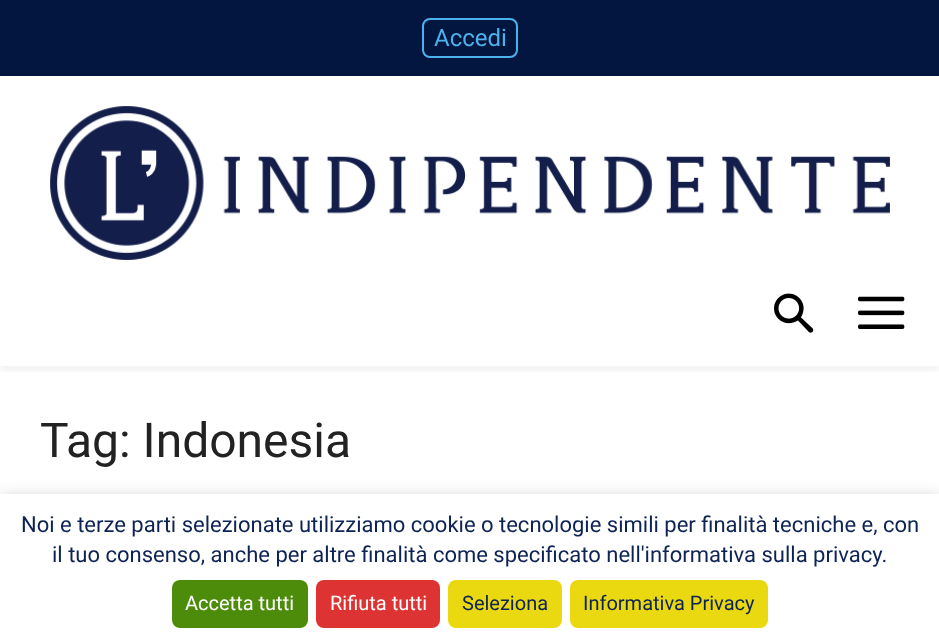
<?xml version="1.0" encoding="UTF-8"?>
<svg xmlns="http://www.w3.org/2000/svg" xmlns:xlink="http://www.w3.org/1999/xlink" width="939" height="644">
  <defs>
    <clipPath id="clip1"><rect x="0" y="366" width="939" height="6" /></clipPath>
  </defs>
  <rect width="100%" height="100%" fill="#ffffff" />
  <rect width="939" height="76" fill="#03163f" />
  <rect x="423" y="19" width="94" height="38" rx="7" fill="none" stroke="#4db2ec" stroke-width="2" />
  <image x="50" y="106" width="840" height="154" xlink:href="image1.png" />
  <image x="774" y="293" width="40" height="40" xlink:href="image2.png" />
  <image x="858" y="296" width="47" height="33" xlink:href="image3.png" />
  <g clip-path="url(#clip1)">
    <rect y="4" width="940" height="366" fill="#000000" fill-opacity="0.06" filter="blur(4px)" />
  </g>
  <rect y="504" width="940" height="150" fill="#000000" fill-opacity="0.5" filter="blur(10px)" />
  <rect y="494" width="939" height="150" fill="#ffffff" />
  <rect x="172" y="580" width="136" height="48" rx="8" fill="#4d8c0b" />
  <rect x="316" y="580" width="124" height="48" rx="8" fill="#dd3333" />
  <rect x="448" y="580" width="114" height="48" rx="8" fill="#ead810" />
  <rect x="570" y="580" width="198" height="48" rx="8" fill="#ead810" />
  <text x="434" y="46" style="font-family: Roboto; font-size: 24px; fill: #4db2ec">Accedi</text>
  <text x="40" y="457" style="font-family: Roboto; font-size: 48px; fill: #222222">Tag: Indonesia</text>
  <text x="21" y="532" style="font-family: Roboto; font-size: 22px; fill: #0d2354">Noi e terze parti selezionate utilizziamo cookie o tecnologie simili per finalità tecniche e, con</text>
  <text x="52" y="562" style="font-family: Roboto; font-size: 22px; fill: #0d2354">il tuo consenso, anche per altre finalità come specificato nell'informativa sulla privacy.</text>
  <text x="185" y="610" style="font-family: Roboto; font-size: 20px; fill: #ffffff">Accetta tutti</text>
  <text x="330" y="610" style="font-family: Roboto; font-size: 20px; fill: #ffffff">Rifiuta tutti</text>
  <text x="462" y="610" style="font-family: Roboto; font-size: 20px; fill: #0d2354">Seleziona</text>
  <text x="583" y="610" style="font-family: Roboto; font-size: 20px; fill: #0d2354">Informativa Privacy</text>
</svg>
